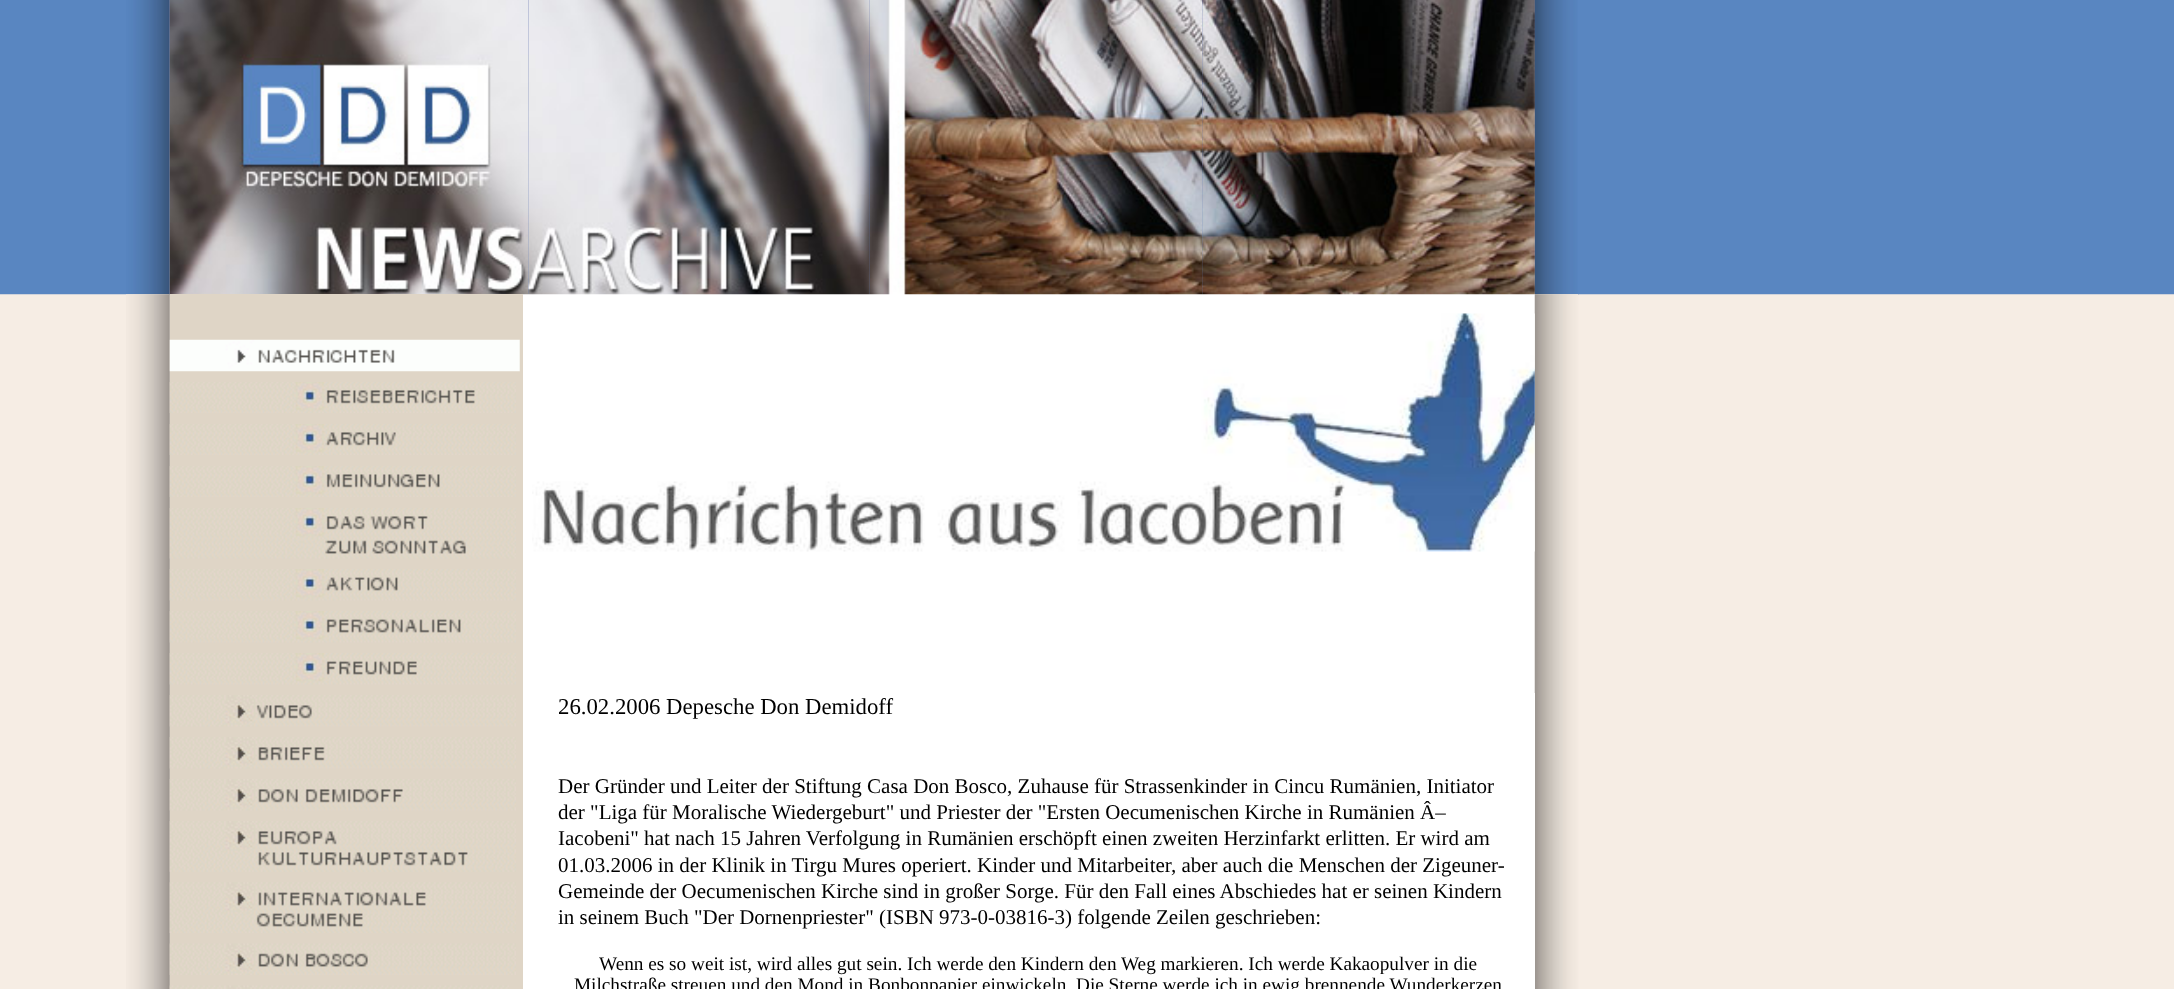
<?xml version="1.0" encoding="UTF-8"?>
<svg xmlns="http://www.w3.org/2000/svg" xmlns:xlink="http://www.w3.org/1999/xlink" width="2174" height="989">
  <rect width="100%" height="100%" fill="#f6ede4" />
  <rect width="126" height="294" fill="#5986c1" />
  <image x="126" y="0" width="44" height="295" xlink:href="image1.png" />
  <image x="169" y="0" width="1366" height="295" xlink:href="image2.png" />
  <image x="126" y="294" width="44" height="695" xlink:href="image8.png" />
  <image x="1534" y="0" width="44" height="295" xlink:href="image7.png" />
  <rect x="523" y="294" width="1012" height="695" fill="#ffffff" />
  <image x="169" y="0" width="360" height="295" xlink:href="image3.png" />
  <image x="528" y="0" width="342" height="295" xlink:href="image4.png" />
  <image x="869" y="0" width="334" height="295" xlink:href="image5.png" />
  <rect x="1578" width="596" height="295" fill="#5986c1" />
  <image x="1534" y="294" width="45" height="695" xlink:href="image9.png" />
  <image x="1202" y="0" width="333" height="295" xlink:href="image6.png" />
  <rect y="294" width="126" height="1" fill="#cfd3db" />
  <image x="1578" y="294" width="596" height="1" xlink:href="image10.png" />
  <rect x="170" y="294" width="353" height="695" fill="#dfd5c6" />
  <image x="169" y="339" width="351" height="33" xlink:href="image11.png" />
  <image x="169" y="382" width="347" height="31" xlink:href="image12.png" />
  <image x="169" y="424" width="347" height="31" xlink:href="image13.png" />
  <image x="169" y="466" width="347" height="31" xlink:href="image14.png" />
  <image x="169" y="508" width="347" height="51" xlink:href="image15.png" />
  <image x="169" y="569" width="347" height="32" xlink:href="image16.png" />
  <image x="169" y="611" width="347" height="32" xlink:href="image17.png" />
  <image x="169" y="653" width="347" height="32" xlink:href="image18.png" />
  <image x="169" y="695" width="347" height="32" xlink:href="image19.png" />
  <image x="169" y="737" width="347" height="32" xlink:href="image20.png" />
  <image x="169" y="779" width="347" height="32" xlink:href="image21.png" />
  <image x="169" y="821" width="347" height="51" xlink:href="image22.png" />
  <image x="169" y="882" width="347" height="51" xlink:href="image23.png" />
  <image x="169" y="943" width="347" height="32" xlink:href="image24.png" />
  <image x="169" y="985" width="340" height="4" xlink:href="image25.png" />
  <image x="532" y="313" width="1003" height="239" xlink:href="image26.png" />
  <rect x="1534" y="693" width="1" height="296" fill="#ffffff" />
  <text x="558" y="714" style="font-family: Liberation Serif; font-size: 22.75px; fill: #000000">26.02.2006 Depesche Don Demidoff</text>
  <text x="558" y="793" style="font-family: Liberation Serif; font-size: 21px; fill: #000000">Der Gründer und Leiter der Stiftung Casa Don Bosco, Zuhause für Strassenkinder in Cincu Rumänien, Initiator</text>
  <text x="558" y="819" style="font-family: Liberation Serif; font-size: 21px; fill: #000000">der "Liga für Moralische Wiedergeburt" und Priester der "Ersten Oecumenischen Kirche in Rumänien Â–</text>
  <text x="558" y="845" style="font-family: Liberation Serif; font-size: 21px; fill: #000000">Iacobeni" hat nach 15 Jahren Verfolgung in Rumänien erschöpft einen zweiten Herzinfarkt erlitten. Er wird am</text>
  <text x="558" y="872" style="font-family: Liberation Serif; font-size: 21px; fill: #000000">01.03.2006 in der Klinik in Tirgu Mures operiert. Kinder und Mitarbeiter, aber auch die Menschen der Zigeuner-</text>
  <text x="558" y="898" style="font-family: Liberation Serif; font-size: 21px; fill: #000000">Gemeinde der Oecumenischen Kirche sind in großer Sorge. Für den Fall eines Abschiedes hat er seinen Kindern</text>
  <text x="558" y="924" style="font-family: Liberation Serif; font-size: 21px; fill: #000000">in seinem Buch "Der Dornenpriester" (ISBN 973-0-03816-3) folgende Zeilen geschrieben:</text>
  <text x="599" y="970" style="font-family: Liberation Serif; font-size: 19.25px; fill: #000000">Wenn es so weit ist, wird alles gut sein. Ich werde den Kindern den Weg markieren. Ich werde Kakaopulver in die</text>
  <text x="574" y="991" style="font-family: Liberation Serif; font-size: 19.25px; fill: #000000">Milchstraße streuen und den Mond in Bonbonpapier einwickeln</text>
  <text x="1076" y="991" style="font-family: Liberation Serif; font-size: 19.25px; fill: #000000">Die Sterne werde ich in ewig brennende Wunderkerzen</text>
</svg>
